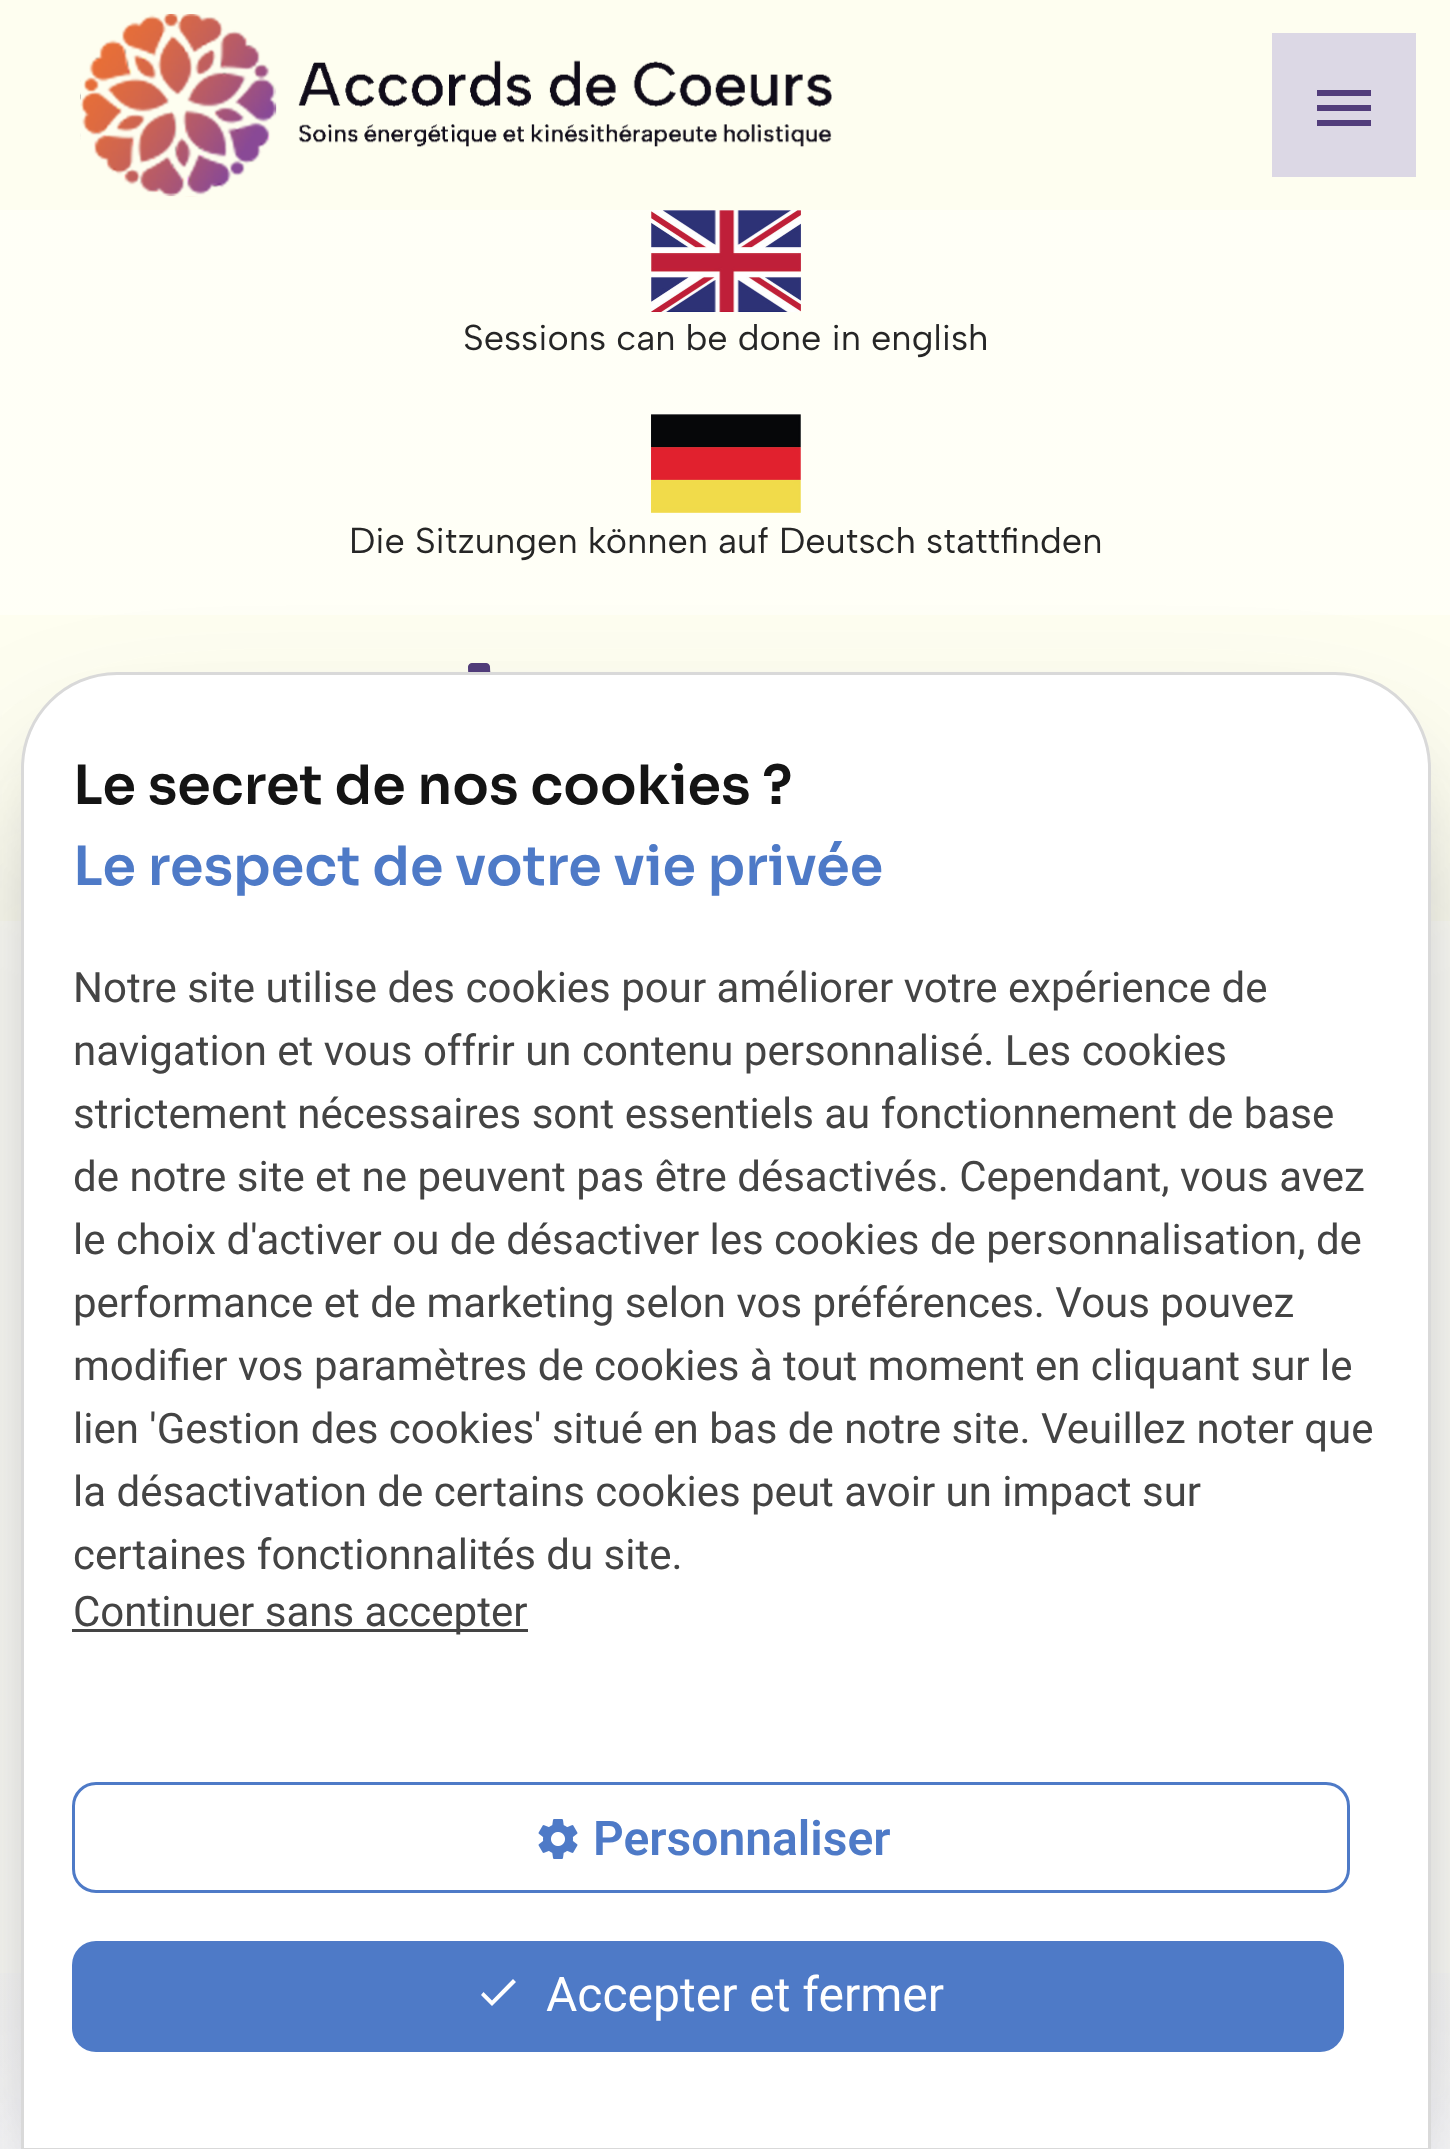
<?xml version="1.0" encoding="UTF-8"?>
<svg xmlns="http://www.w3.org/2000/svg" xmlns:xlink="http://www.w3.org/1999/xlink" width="1450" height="2149">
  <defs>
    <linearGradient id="g1" gradientUnits="userSpaceOnUse" x1="726" y1="0" x2="726" y2="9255"><stop offset="0" stop-color="#fffff6" /><stop offset="1" stop-color="#ffffff" /></linearGradient>
    <linearGradient id="g2" gradientUnits="userSpaceOnUse" x1="726" y1="1833" x2="726" y2="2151"><stop offset="0" stop-color="#fafafa" stop-opacity="0" /><stop offset="1" stop-color="#fafafa" /></linearGradient>
  </defs>
  <rect width="100%" height="100%" fill="#ffffff" />
  <rect y="210" width="1450" height="1939" fill="url(#g1)" />
  <rect width="1450" height="210" fill="#fefef0" />
  <image x="80" y="13" width="752" height="184" xlink:href="image1.png" />
  <rect x="1272" y="33" width="144" height="144" fill="#dcd8e5" />
  <path d="M 1317 90 h 54 v 6 h -54 z m 0 21 v -6 h 54 v 6 z m 0 15 v -6 h 54 v 6 z" fill="#523d7b" />
  <image x="651" y="210" width="150" height="102" xlink:href="image2.png" />
  <image x="651" y="414" width="150" height="99" xlink:href="image3.png" />
  <rect y="615" width="1450" height="306" fill="#fefef0" />
  <image x="468" y="663" width="23" height="9" xlink:href="image4.png" />
  <rect y="1973" width="1450" height="176" fill="url(#g2)" />
  <rect x="75" y="780" width="1302" height="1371" rx="42" fill="#000000" fill-opacity="0.3" filter="blur(54px)" />
  <rect x="57" y="798" width="1338" height="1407" rx="60" fill="#32325d" fill-opacity="0.25" filter="blur(90px)" />
  <path d="M 117 673.5 h 1218 c 52 0 94.5 42.5 94.5 94.5 v 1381.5 h -1407 v -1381.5 c 0 -52 42.5 -94.5 94.5 -94.5 z" fill="#ffffff" stroke="#d9d9d9" stroke-width="3" />
  <rect x="72" y="1629" width="456" height="3" fill="#444444" />
  <rect x="73.5" y="1783.5" width="1275" height="108" rx="22.5" fill="none" stroke="#4e7ac7" stroke-width="3" />
  <image x="538" y="1819" width="40" height="40" xlink:href="image5.png" />
  <rect x="72" y="1941" width="1272" height="111" rx="24" fill="#4e7ac7" />
  <path d="M 492 2000.5 l 21 -21.5 l 3 3 l -24 24 l -11 -11 l 2.5 -3 z" fill="#ffffff" />
  <text x="463" y="350" style="font-family: Albert Sans; font-size: 36px; fill: #262626">Sessions can be done in english</text>
  <text x="349" y="553" style="font-family: Albert Sans; font-size: 36px; fill: #262626">Die Sitzungen können auf Deutsch stattfinden</text>
  <text x="73" y="804" style="font-family: Sora; font-size: 54px; font-weight: 600; fill: #141414">Le secret de nos cookies ?</text>
  <text x="73" y="885" style="font-family: Sora; font-size: 54px; font-weight: 600; fill: #4e7ac7">Le respect de votre vie privée</text>
  <text x="73" y="1002" style="font-family: Roboto; font-size: 42px; fill: #444444">Notre site utilise des cookies pour améliorer votre expérience de</text>
  <text x="73" y="1065" style="font-family: Roboto; font-size: 42px; fill: #444444">navigation et vous offrir un contenu personnalisé. Les cookies</text>
  <text x="73" y="1128" style="font-family: Roboto; font-size: 42px; fill: #444444">strictement nécessaires sont essentiels au fonctionnement de base</text>
  <text x="73" y="1191" style="font-family: Roboto; font-size: 42px; fill: #444444">de notre site et ne peuvent pas être désactivés. Cependant, vous avez</text>
  <text x="73" y="1254" style="font-family: Roboto; font-size: 42px; fill: #444444">le choix d'activer ou de désactiver les cookies de personnalisation, de</text>
  <text x="73" y="1317" style="font-family: Roboto; font-size: 42px; fill: #444444">performance et de marketing selon vos préférences. Vous pouvez</text>
  <text x="73" y="1380" style="font-family: Roboto; font-size: 42px; fill: #444444">modifier vos paramètres de cookies à tout moment en cliquant sur le</text>
  <text x="73" y="1443" style="font-family: Roboto; font-size: 42px; fill: #444444">lien 'Gestion des cookies' situé en bas de notre site. Veuillez noter que</text>
  <text x="73" y="1506" style="font-family: Roboto; font-size: 42px; fill: #444444">la désactivation de certains cookies peut avoir un impact sur</text>
  <text x="73" y="1569" style="font-family: Roboto; font-size: 42px; fill: #444444">certaines fonctionnalités du site.</text>
  <text x="73" y="1626" style="font-family: Roboto; font-size: 42px; fill: #444444">Continuer sans accepter</text>
  <text x="593" y="1855" style="font-family: Roboto; font-size: 48px; font-weight: 600; fill: #4e7ac7">Personnaliser</text>
  <text x="546" y="2011" style="font-family: Roboto; font-size: 48px; fill: #ffffff">Accepter et fermer</text>
</svg>
